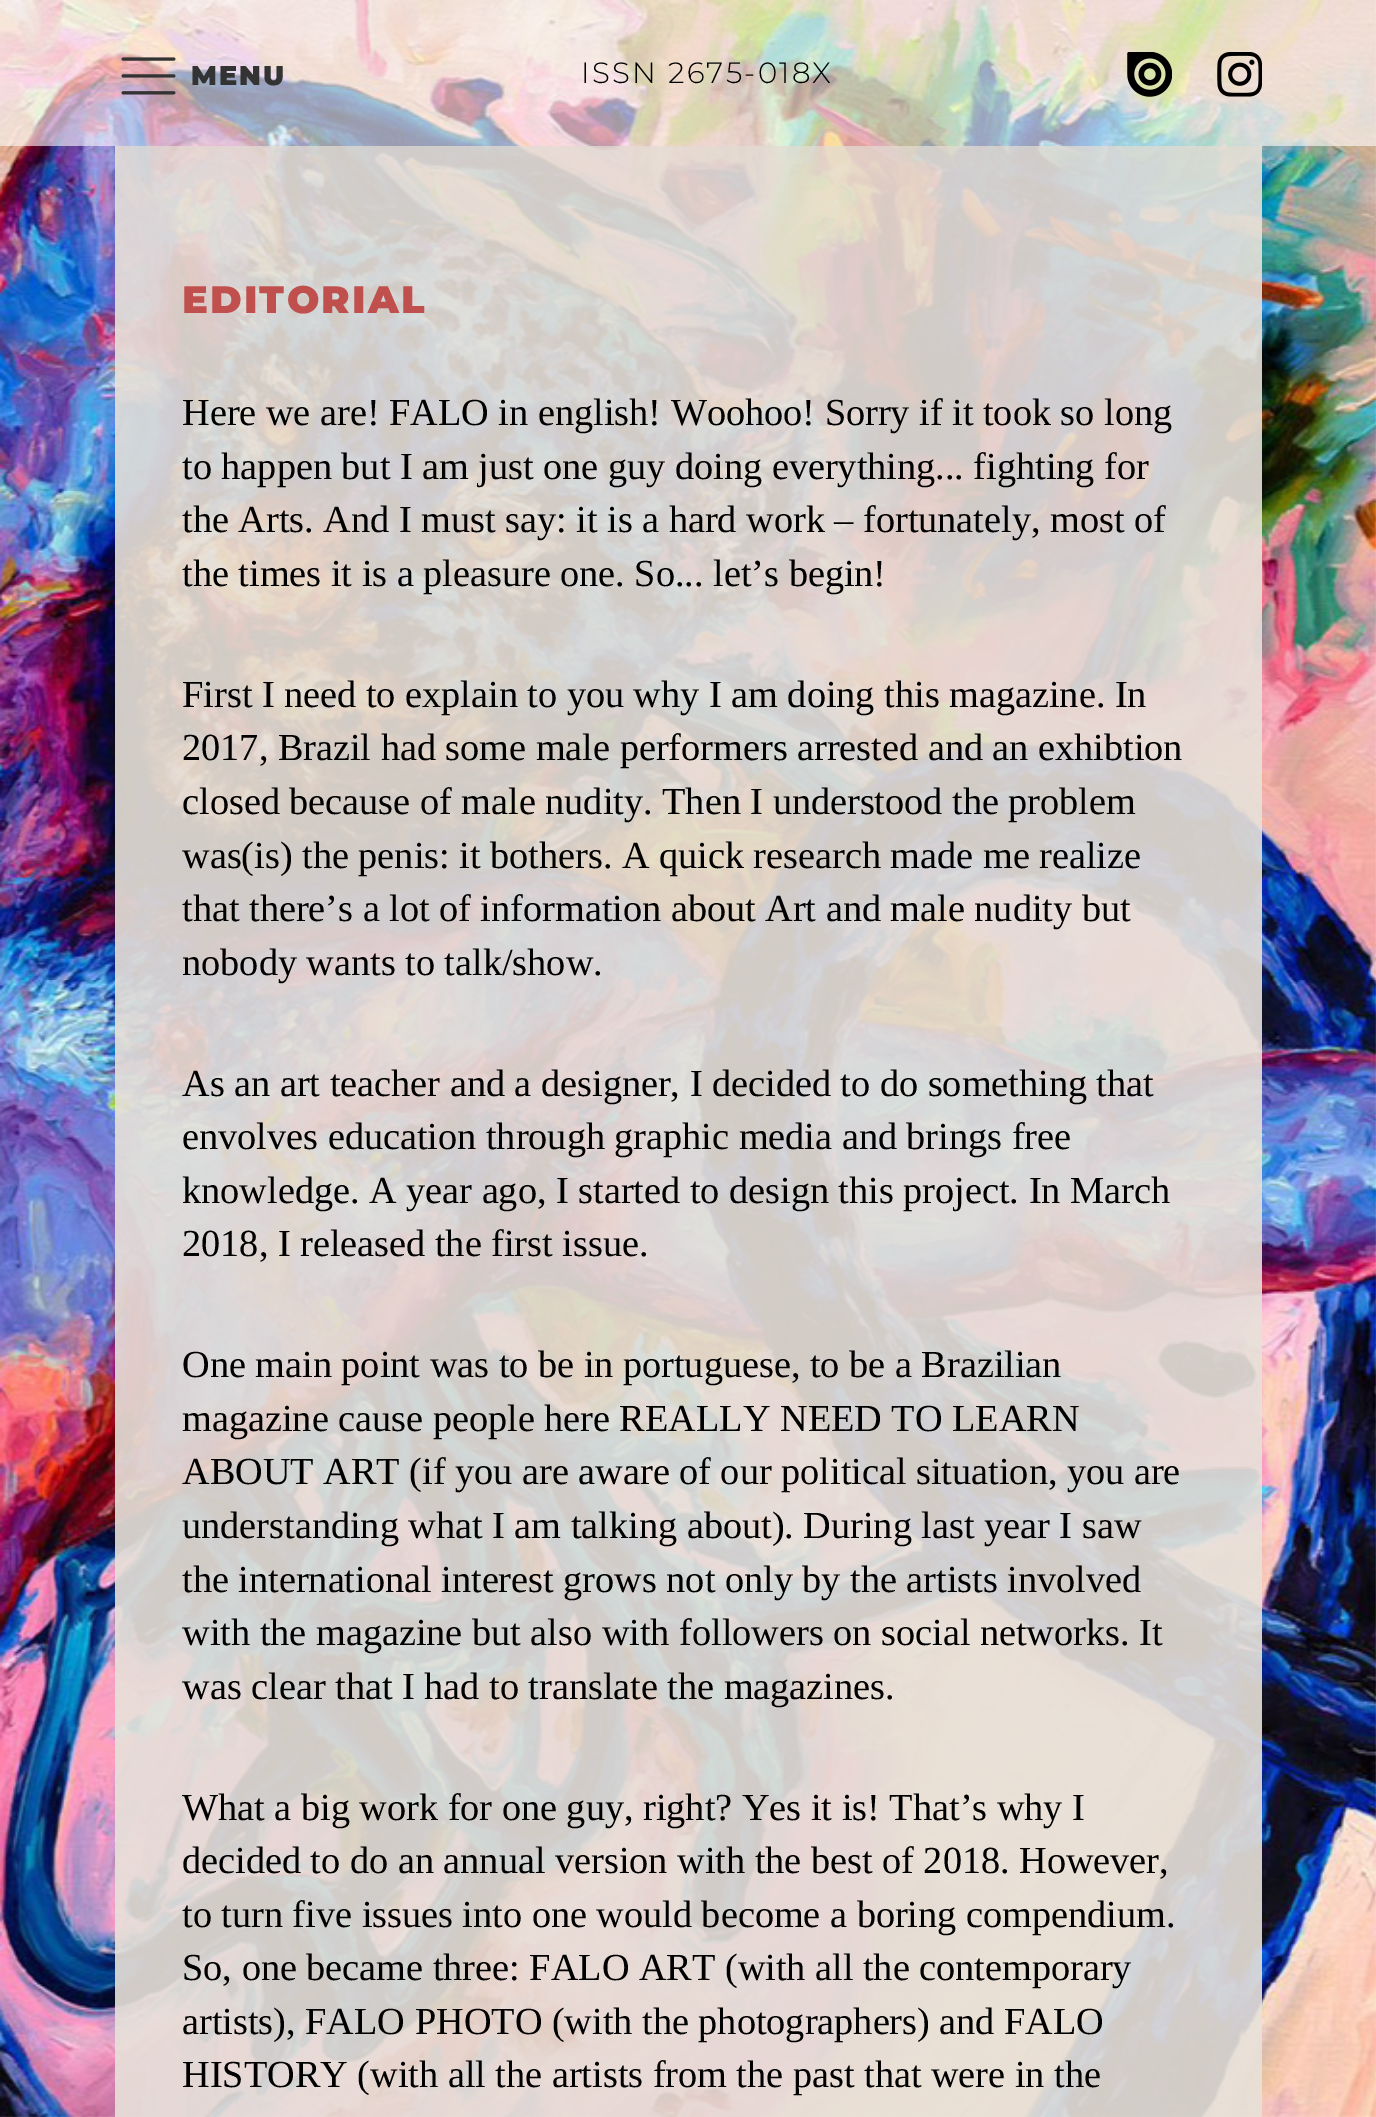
%!PS
<< /PageSize [1376 2117] /PageUsesTransparency true >> setpagedevice
/rgb { dup -16 bitshift 255 div exch dup -8 bitshift 255 and 255 div exch 255 and 255 div setrgbcolor } def
/font { [ exch dup neg 0 0 3 -1 roll 0 0 ] selectfont } def
/text { moveto show } def
/alpha { dup .setfillconstantalpha .setstrokeconstantalpha } def
/picture { 5 dict begin { /h /w /y /x /name } { exch def } forall
  gsave x y translate w h scale
  w h 8 [w 0 0 h 0 0] name (r) file false 3 colorimage grestore end } def
0 .pushpdf14devicefilter
0 2117 translate 1 -1 scale
4 setmiterlimit
/s1 { /LiberationSerif-Regular 38.25 font 16#000000 rgb } def
16#FFFFFF rgb
0 0 1376 2117 rectfill
(pic1.raw) 0 0 1376 2117 picture
0.6 alpha
0 0 1376 146 rectfill
1 alpha
(pic2.raw) 121 57 55 38 picture
/Montserrat-Black 27 font
16#333333 rgb
191 85 moveto 2.25 0 (MENU) ashow
/Montserrat-Light 29.25 font
16#000000 rgb
581 83 moveto 2.25 0 (ISSN 2675-018X) ashow
(pic3.raw) 1127 52 45 45 picture
(pic4.raw) 1217 52 45 45 picture
0.9 alpha
16#E7E1D9 rgb
115 146 1147 1971 rectfill
/Montserrat-Black 38.25 font
1 alpha
16#C0504D rgb
182 313 moveto 2.25 0 (EDITORIAL) ashow
s1
(Here we are! FALO in english! Woohoo! Sorry if it took so long) 182 425 text
(to happen but I am just one guy doing everything... fighting for) 182 479 text
(the Arts. And I must say: it is a hard work – fortunately, most of) 182 532 text
(the times it is a pleasure one. So... let’s begin!) 182 586 text
(First I need to explain to you why I am doing this magazine. In) 182 707 text
(2017, Brazil had some male performers arrested and an exhibtion) 182 760 text
(closed because of male nudity. Then I understood the problem) 182 814 text
(was\(is\) the penis: it bothers. A quick research made me realize) 182 868 text
(that there’s a lot of information about Art and male nudity but) 182 921 text
(nobody wants to talk/show.) 182 975 text
(As an art teacher and a designer, I decided to do something that) 182 1096 text
(envolves education through graphic media and brings free) 182 1149 text
(knowledge. A year ago, I started to design this project. In March) 182 1203 text
(2018, I released the first issue.) 182 1256 text
(One main point was to be in portuguese, to be a Brazilian) 182 1377 text
(magazine cause people here REALLY NEED TO LEARN) 182 1431 text
(ABOUT ART \(if you are aware of our political situation, you are) 182 1484 text
(understanding what I am talking about\). During last year I saw) 182 1538 text
(the international interest grows not only by the artists involved) 182 1592 text
(with the magazine but also with followers on social networks. It) 182 1645 text
(was clear that I had to translate the magazines.) 182 1699 text
(What a big work for one guy, right? Yes it is! That’s why I) 182 1820 text
(decided to do an annual version with the best of 2018. However,) 182 1873 text
(to turn five issues into one would become a boring compendium.) 182 1927 text
(So, one became three: FALO ART \(with all the contemporary) 182 1980 text
(artists\), FALO PHOTO \(with the photographers\) and FALO) 182 2034 text
(HISTORY \(with all the artists from the past that were in the) 182 2087 text
.poppdf14devicefilter showpage
